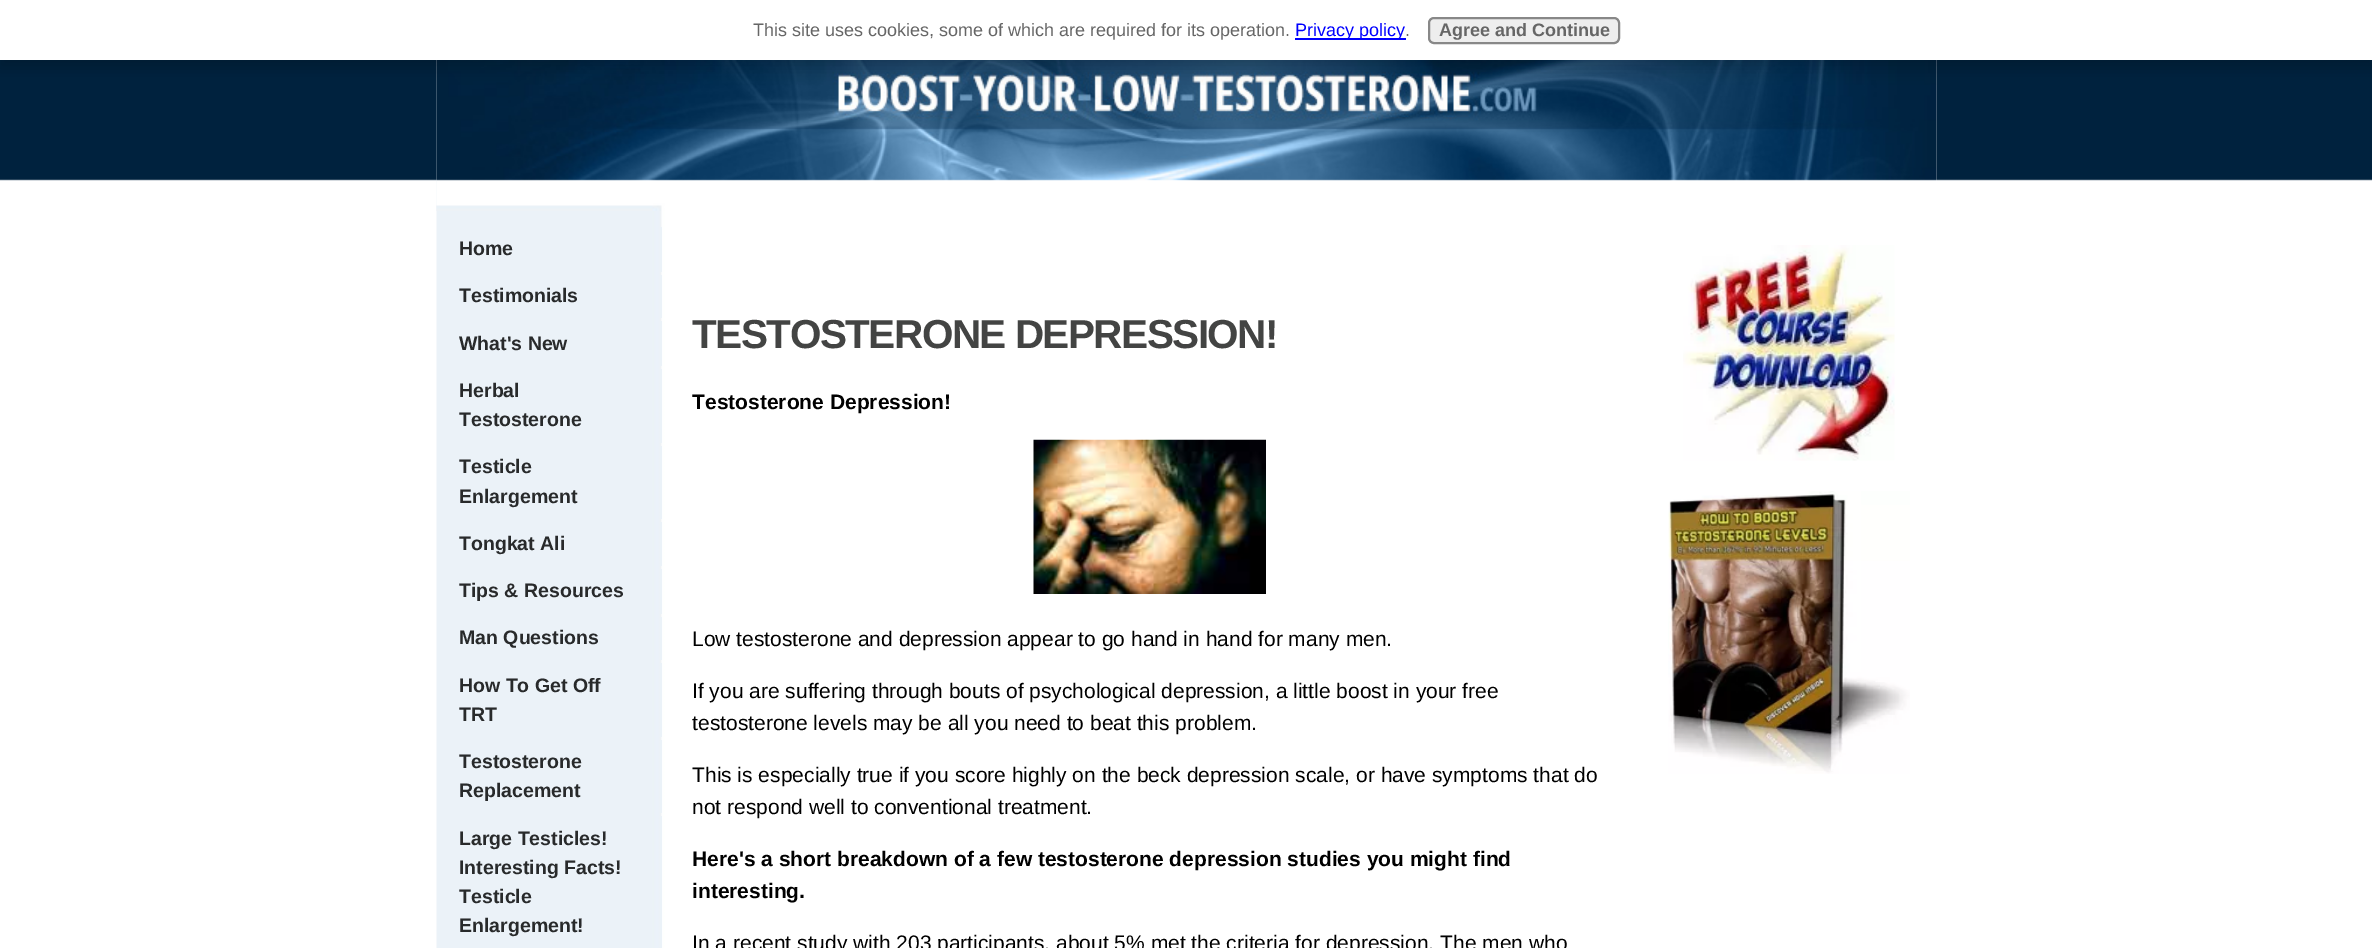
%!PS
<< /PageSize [2372 948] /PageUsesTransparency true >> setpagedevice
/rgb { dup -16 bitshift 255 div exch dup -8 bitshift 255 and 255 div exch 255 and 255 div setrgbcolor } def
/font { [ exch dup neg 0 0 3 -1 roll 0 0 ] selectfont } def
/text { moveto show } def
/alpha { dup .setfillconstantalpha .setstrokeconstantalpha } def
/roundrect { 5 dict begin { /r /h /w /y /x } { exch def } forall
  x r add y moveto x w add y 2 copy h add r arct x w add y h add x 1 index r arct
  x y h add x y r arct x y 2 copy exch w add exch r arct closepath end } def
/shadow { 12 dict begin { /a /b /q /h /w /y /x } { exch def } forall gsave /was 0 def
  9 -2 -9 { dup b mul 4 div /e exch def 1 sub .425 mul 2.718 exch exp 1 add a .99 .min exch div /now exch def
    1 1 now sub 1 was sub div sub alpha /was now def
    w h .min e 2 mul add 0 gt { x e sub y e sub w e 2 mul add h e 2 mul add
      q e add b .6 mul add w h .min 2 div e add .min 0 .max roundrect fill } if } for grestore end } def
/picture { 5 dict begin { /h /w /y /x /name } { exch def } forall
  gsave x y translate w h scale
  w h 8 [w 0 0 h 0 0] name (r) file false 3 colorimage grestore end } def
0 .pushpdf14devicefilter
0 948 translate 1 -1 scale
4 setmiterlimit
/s1 { /LiberationSans-Regular 18 font 16#666666 rgb } def
/s2 { /LiberationSans-Regular 18 font 16#0000FF rgb } def
/s3 { /LiberationSans-Bold 18 font 16#666666 rgb } def
/s4 { /LiberationSans-Bold 19.5 font 16#282A2B rgb } def
/s5 { /LiberationSans-Bold 21 font 16#000000 rgb } def
/s6 { /LiberationSans-Regular 21 font 16#000000 rgb } def
16#FFFFFF rgb
0 0 2372 948 rectfill
(pic1.raw) 0 60 2372 121 picture
(pic2.raw) 436 60 1501 888 picture
(pic3.raw) 436 60 1501 151 picture
16#000000 rgb
-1 5 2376 63 0 7.5 0.2 shadow
16#FFFFFF rgb
0 0 2372 60 rectfill
s1
(This site uses cookies, some of which are required for its operation.) 753 36 text
16#0000FF rgb
1295 38 111 2 rectfill
(Privacy policy) 1295 36 text
s1
(.) 1405 36 text
16#EEEEEE rgb
1429 18 190 25 5 roundrect gsave fill grestore
16#888888 rgb
2 setlinewidth
stroke
s3
(Agree and Continue) 1439 36 text
16#EBF2F8 rgb
660 227 2 45 rectfill
s4
(Home) 459 255 text
16#EBF2F8 rgb
660 275 2 43 rectfill
s4
(Testimonials) 459 302 text
16#EBF2F8 rgb
660 321 2 45 rectfill
s4
(What's New) 459 350 text
16#EBF2F8 rgb
660 369 2 74 rectfill
s4
(Herbal) 459 397 text
(Testosterone) 459 426 text
16#EBF2F8 rgb
660 446 2 73 rectfill
s4
(Testicle) 459 473 text
(Enlargement) 459 503 text
16#EBF2F8 rgb
660 522 2 44 rectfill
s4
(Tongkat Ali) 459 550 text
16#EBF2F8 rgb
660 569 2 45 rectfill
s4
(Tips & Resources) 459 597 text
16#EBF2F8 rgb
660 617 2 43 rectfill
s4
(Man Questions) 459 644 text
16#EBF2F8 rgb
660 663 2 74 rectfill
s4
(How To Get Off) 459 692 text
(TRT) 459 721 text
16#EBF2F8 rgb
660 740 2 73 rectfill
s4
(Testosterone) 459 768 text
(Replacement) 459 797 text
16#EBF2F8 rgb
660 816 2 132 rectfill
s4
(Large Testicles!) 459 845 text
(Interesting Facts!) 459 874 text
(Testicle) 459 903 text
(Enlargement!) 459 932 text
/LiberationSans-Bold 40.5 font
16#434443 rgb
692 348 moveto -1.5 0 (TESTOSTERONE DEPRESSION!) ashow
s5
(Testosterone Depression!) 692 409 text
(pic4.raw) 1033 439 233 155 picture
s6
(Low testosterone and depression appear to go hand in hand for many men.) 692 646 text
(If you are suffering through bouts of psychological depression, a little boost in your free) 692 698 text
(testosterone levels may be all you need to beat this problem.) 692 730 text
(This is especially true if you score highly on the beck depression scale, or have symptoms that do) 692 782 text
(not respond well to conventional treatment.) 692 814 text
s5
(Here's a short breakdown of a few testosterone depression studies you might find) 692 866 text
(interesting.) 692 898 text
s6
(In a recent study with 203 participants, about 5% met the criteria for depression. The men who) 692 950 text
(pic5.raw) 1683 245 212 216 picture
(pic6.raw) 1668 491 242 283 picture
.poppdf14devicefilter showpage
